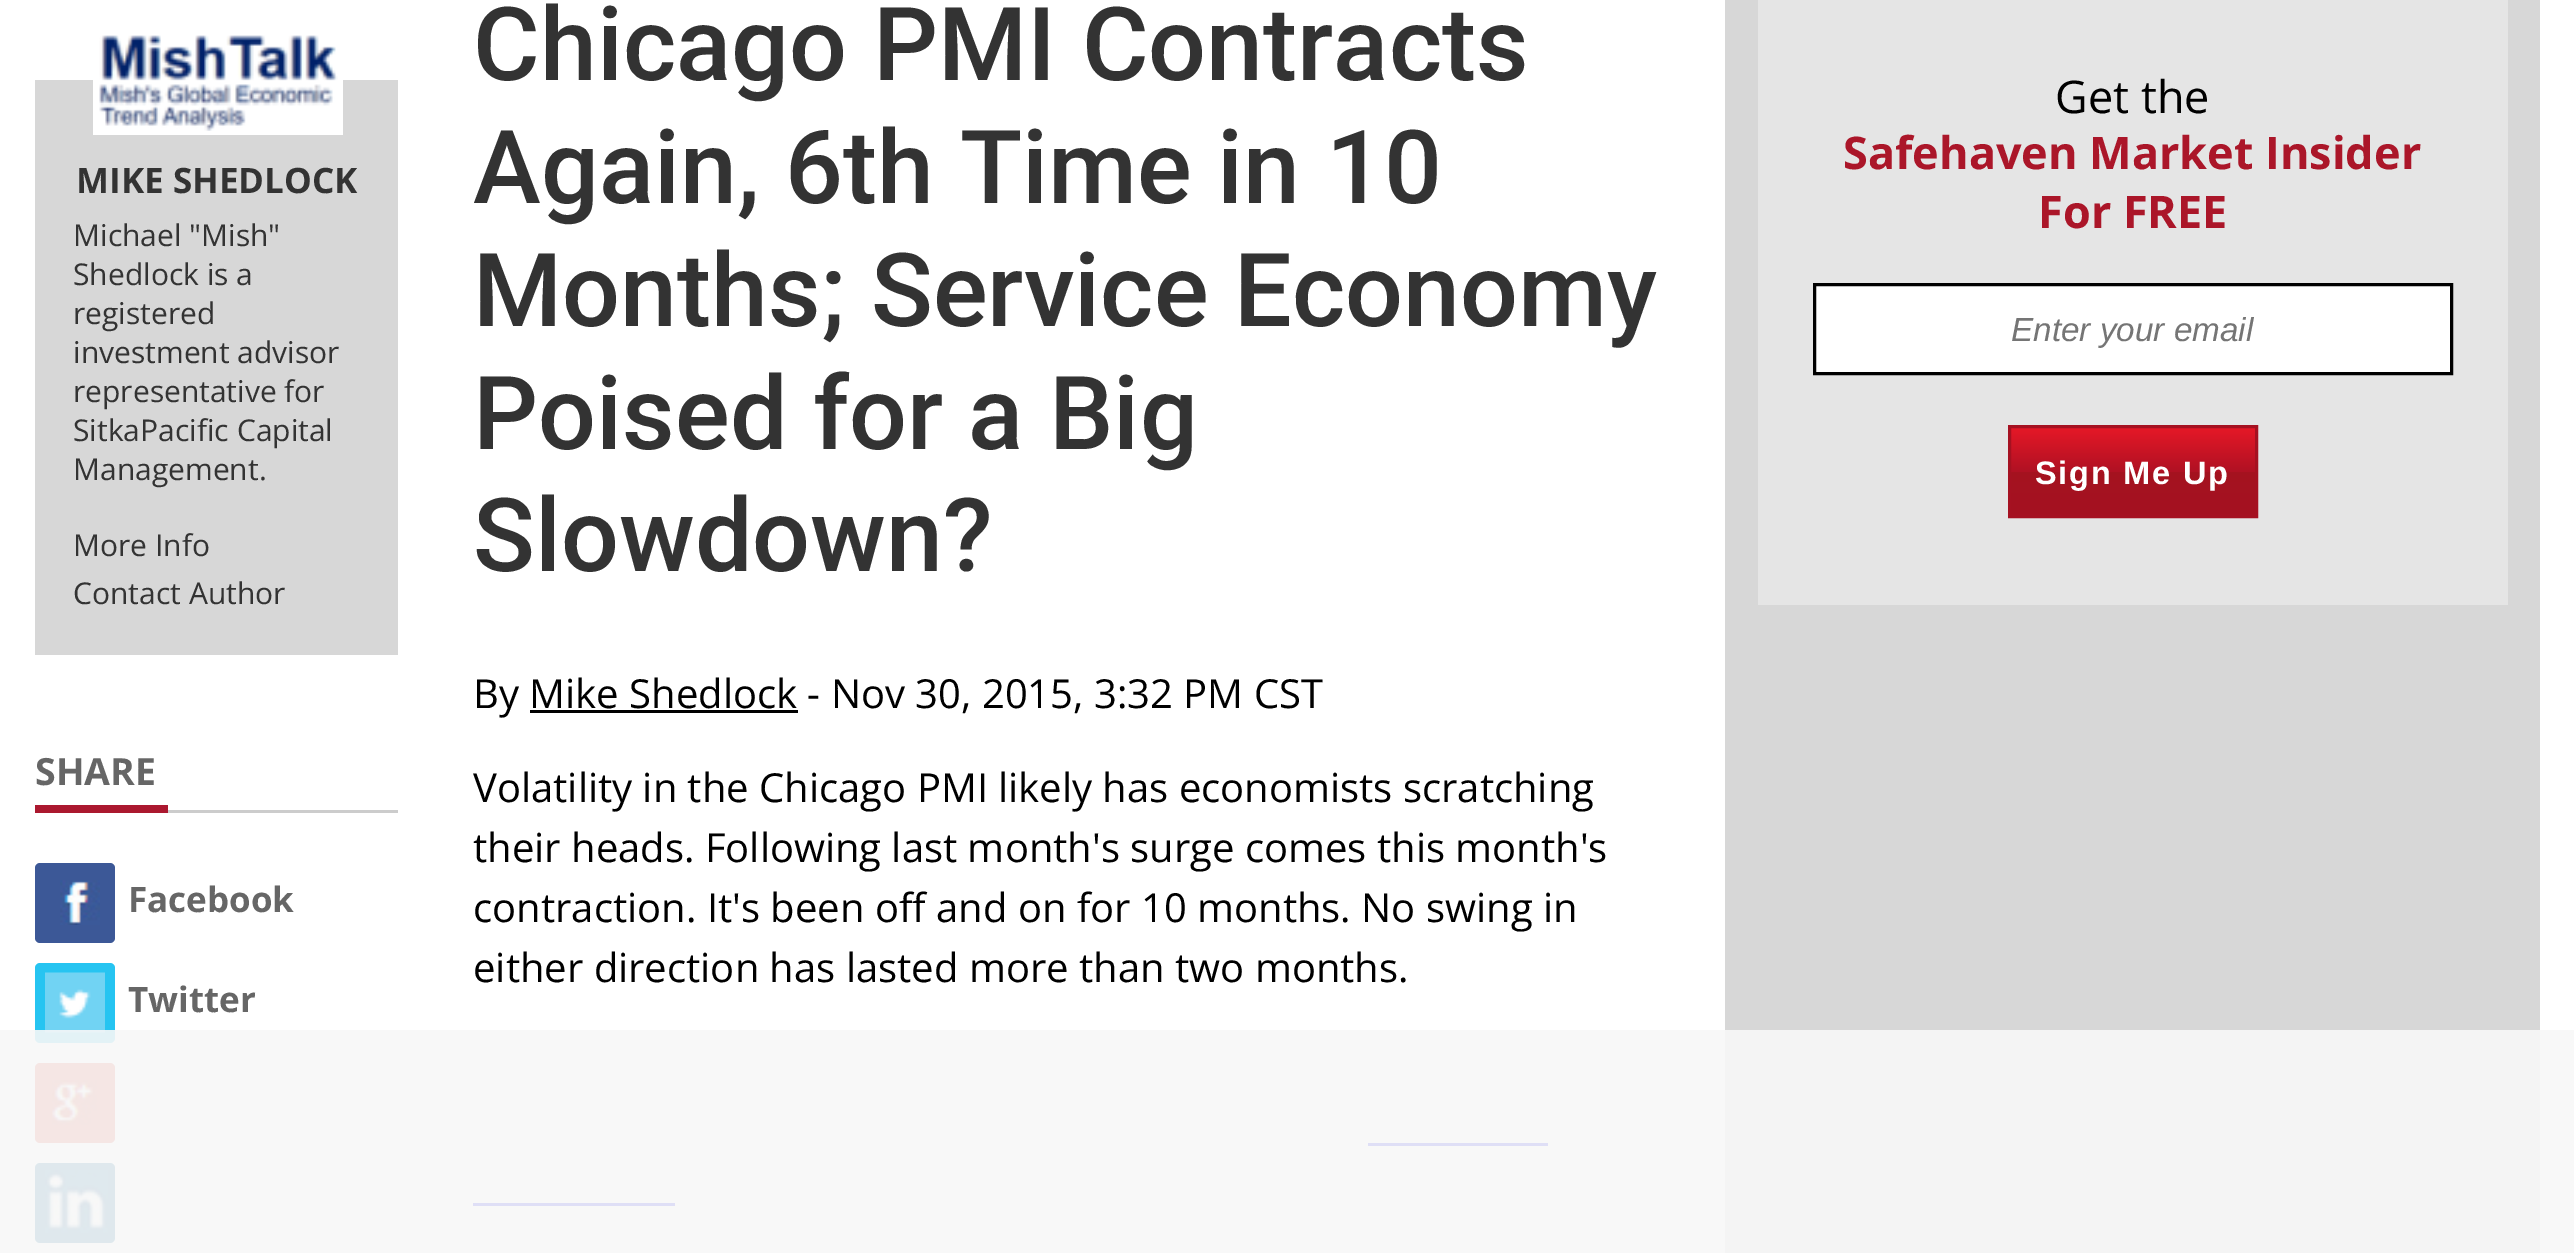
%!PS
<< /PageSize [2574 1253] /PageUsesTransparency true >> setpagedevice
/rgb { dup -16 bitshift 255 div exch dup -8 bitshift 255 and 255 div exch 255 and 255 div setrgbcolor } def
/font { [ exch dup neg 0 0 3 -1 roll 0 0 ] selectfont } def
/text { moveto show } def
/alpha { dup .setfillconstantalpha .setstrokeconstantalpha } def
/roundrect { 5 dict begin { /r /h /w /y /x } { exch def } forall
  x r add y moveto x w add y 2 copy h add r arct x w add y h add x 1 index r arct
  x y h add x y r arct x y 2 copy exch w add exch r arct closepath end } def
/picture { 5 dict begin { /h /w /y /x /name } { exch def } forall
  gsave x y translate w h scale
  w h 8 [w 0 0 h 0 0] name (r) file false 3 colorimage grestore end } def
0 .pushpdf14devicefilter
0 1253 translate 1 -1 scale
4 setmiterlimit
/s1 { /OpenSans-Bold 35 font 16#333333 rgb } def
/s2 { /OpenSans-Regular 30 font 16#333333 rgb } def
/s3 { /OpenSans-Bold 37.5 font 16#666666 rgb } def
/s4 { /OpenSans-Bold 35 font 16#666666 rgb } def
/s5 { /Roboto-Medium 102.25 font 16#333333 rgb } def
/s6 { /OpenSans-Regular 40 font 16#000000 rgb } def
/s7 { /OpenSans-Regular 45 font 16#000000 rgb } def
/s8 { /OpenSans-Bold 45 font 16#AB1629 rgb } def
/s9 { /LiberationSans-Italic 33.25 font 16#757575 rgb } def
16#FFFFFF rgb
0 0 2574 1253 rectfill
16#D7D7D7 rgb
35 80 363 575 rectfill
16#FFFFFF rgb
93 80 250 55 rectfill
(pic1.raw) 99 35 239 96 picture
s1
(MIKE SHEDLOCK) 76 193 text
s2
(Michael "Mish") 73 246 text
(Shedlock is a) 73 285 text
(registered) 73 324 text
(investment advisor) 73 363 text
(representative for) 73 402 text
(SitkaPacific Capital) 73 441 text
(Management.) 73 480 text
(More Info) 73 556 text
(Contact Author) 73 604 text
s3
(SHARE) 35 785 text
16#AB182F rgb
35 805 133 8 rectfill
16#CCCCCC rgb
168 810 230 3 rectfill
16#3C5897 rgb
35 863 80 80 5 roundrect fill
(pic2.raw) 60 880 40 45 picture
s4
(Facebook) 128 912 text
16#26C4F1 rgb
35 963 80 80 5 roundrect fill
(pic3.raw) 45 972 60 61 picture
s4
(Twitter) 128 1012 text
16#DE4B39 rgb
35 1063 80 80 5 roundrect fill
(pic4.raw) 52 1080 45 45 picture
16#006395 rgb
35 1163 80 80 5 roundrect fill
(pic5.raw) 45 1170 63 63 picture
s5
(Chicago PMI Contracts) 473 80 text
(Again, 6th Time in 10) 473 203 text
(Months; Service Economy) 473 326 text
(Poised for a Big) 473 449 text
(Slowdown?) 473 571 text
s6
(By Mike Shedlock - Nov 30, 2015, 3:32 PM CST) 473 708 text
530 710 268 3 rectfill
(Volatility in the Chicago PMI likely has economists scratching) 473 802 text
(their heads. Following last month's surge comes this month's) 473 862 text
(contraction. It's been off and on for 10 months. No swing in) 473 922 text
(either direction has lasted more than two months.) 473 982 text
16#0000EE rgb
1368 1143 180 3 rectfill
473 1203 202 3 rectfill
16#D7D7D7 rgb
1725 0 815 1253 rectfill
16#E5E5E5 rgb
1758 0 750 605 rectfill
s7
(Get the) 2055 113 text
s8
(Safehaven Market Insider) 1843 169 text
(For FREE) 2038 228 text
16#FFFFFF rgb
1814.5 284.5 moveto 2451.5 284.5 lineto 2451.5 373.5 lineto 1814.5 373.5 lineto closepath gsave fill grestore
16#000000 rgb
3 setlinewidth
stroke
s9
(Enter your email) 2011 341 text
gsave 2011 428 moveto 2255 428 lineto 2255 515 lineto 2011 515 lineto closepath clip newpath
<< /ShadingType 2 /ColorSpace /DeviceRGB /Coords [2133 428 2133 515] /Extend [true true] /Function << /FunctionType 3 /Domain [0 1] /Functions [<< /FunctionType 2 /Domain [0 1] /C0 [0.898 0.094 0.153] /C1 [0.69 0.067 0.137] /N 1 >> << /FunctionType 2 /Domain [0 1] /C0 [0.69 0.067 0.137] /C1 [0.643 0.071 0.122] /N 1 >> << /FunctionType 2 /Domain [0 1] /C0 [0.643 0.071 0.122] /C1 [0.647 0.067 0.129] /N 1 >>] /Bounds [0.5 0.51] /Encode [0 1 0 1 0 1] >> >> shfill grestore
16#A51121 rgb
2009.5 426.5 247 90 rectstroke
/LiberationSans-Bold 32.5 font
16#FFFFFF rgb
2035 484 moveto 1.75 0 (Sign Me Up) ashow
0.9 alpha
16#F7F7F7 rgb
0 1030 2574 223 rectfill
.poppdf14devicefilter showpage
